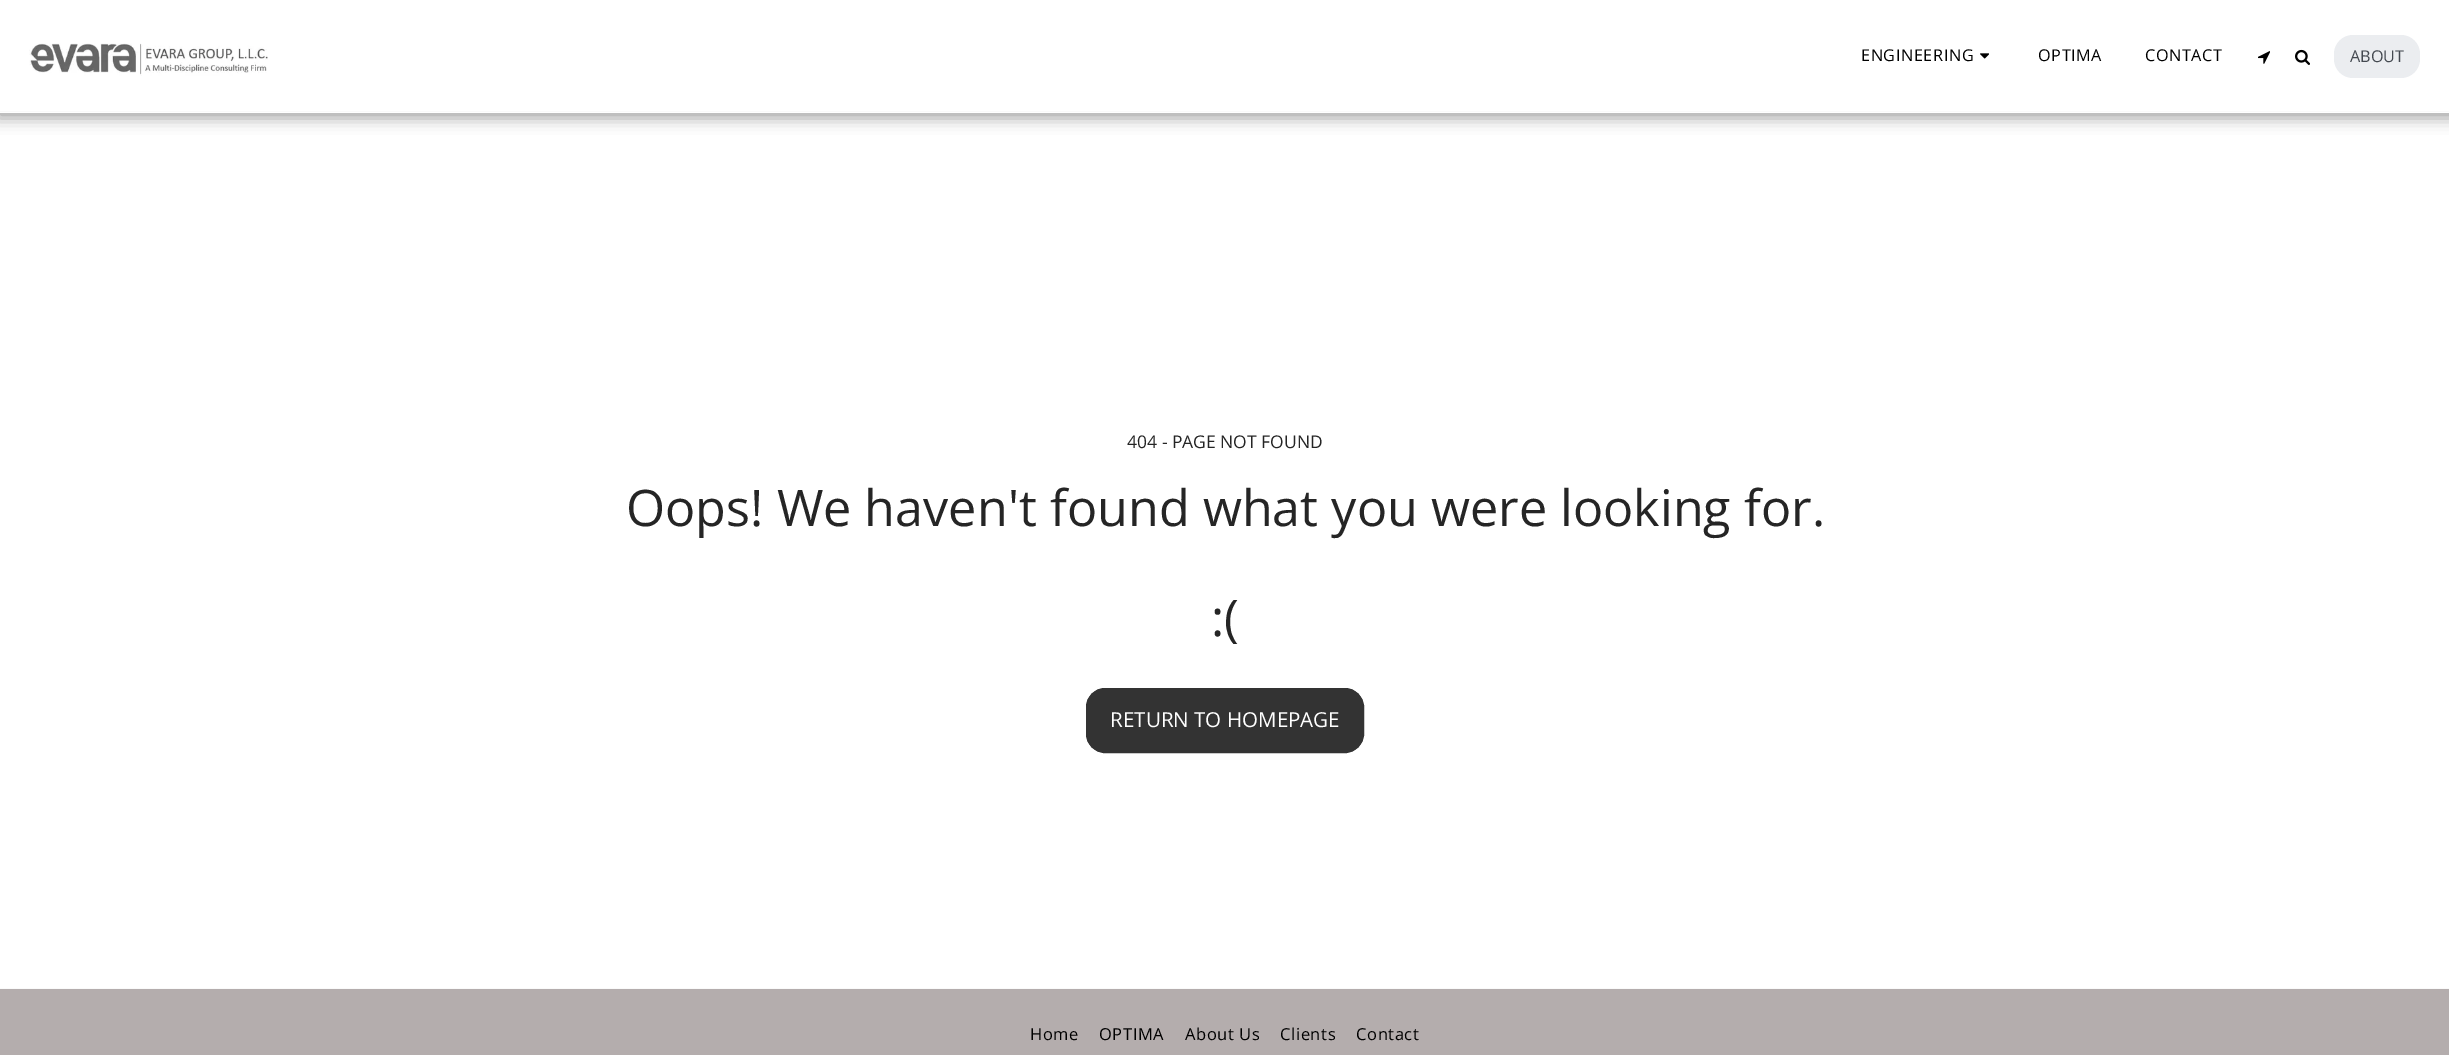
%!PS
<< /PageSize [2449 1055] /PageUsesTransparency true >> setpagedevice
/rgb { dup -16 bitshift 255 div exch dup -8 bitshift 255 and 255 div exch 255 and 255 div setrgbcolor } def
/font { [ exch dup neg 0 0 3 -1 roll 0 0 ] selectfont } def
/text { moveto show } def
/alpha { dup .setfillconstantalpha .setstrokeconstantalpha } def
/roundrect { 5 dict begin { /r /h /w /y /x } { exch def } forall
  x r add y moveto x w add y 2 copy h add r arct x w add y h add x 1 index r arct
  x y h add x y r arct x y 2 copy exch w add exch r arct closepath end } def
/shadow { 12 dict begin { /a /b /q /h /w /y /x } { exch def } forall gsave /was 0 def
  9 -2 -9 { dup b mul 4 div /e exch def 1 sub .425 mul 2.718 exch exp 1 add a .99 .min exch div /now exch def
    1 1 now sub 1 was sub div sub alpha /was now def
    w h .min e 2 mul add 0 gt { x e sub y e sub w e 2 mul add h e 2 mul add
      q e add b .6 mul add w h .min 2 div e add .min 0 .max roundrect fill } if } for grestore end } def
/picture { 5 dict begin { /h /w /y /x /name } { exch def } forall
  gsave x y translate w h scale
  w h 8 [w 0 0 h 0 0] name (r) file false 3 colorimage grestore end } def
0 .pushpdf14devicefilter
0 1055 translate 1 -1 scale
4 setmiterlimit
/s1 { /OpenSans-Regular 16.25 font 16#444950 rgb } def
/s2 { /OpenSans-Regular 17.5 font 16#252525 rgb } def
/s3 { /OpenSans-Regular 50.35 font 16#252525 rgb } def
/s4 { /OpenSans-Regular 20.6 font 16#FFFFFF rgb } def
16#FFFFFF rgb
0 0 2449 1055 rectfill
16#000000 rgb
-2 0 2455 118 0 7.5 0.35 shadow
16#FFFFFF rgb
0 0 2449 113 rectfill
16#FAFAFA rgb
0 111 2449 1 rectfill
(pic1.raw) 29 43 239 33 picture
/OpenSans-Regular 16.25 font
16#000000 rgb
1861 61 moveto 0.6 0 (ENGINEERING) ashow
(pic2.raw) 1980 53 9 6 picture
2038 61 moveto 0.6 0 (OPTIMA) ashow
2145 61 moveto 0.6 0 (CONTACT) ashow
(pic3.raw) 2258 51 12 13 picture
(pic4.raw) 2295 49 15 16 picture
16#EBEDF0 rgb
2334 35 86 43 19 roundrect fill
s1
(ABOUT) 2350 62 text
s2
(404 - PAGE NOT FOUND) 1127 448 text
s3
(Oops! We haven't found what you were looking for.) 626 526 text
(:\() 1211 636 text
16#333333 rgb
1086.5 688.5 277 64 18.5 roundrect gsave fill grestore
stroke
s4
(RETURN TO HOMEPAGE) 1110 727 text
16#FAFAFA rgb
0 988 2449 1 rectfill
16#B4ADAD rgb
0 989 2449 66 rectfill
/OpenSans-Regular 16.5 font
16#000000 rgb
1030 1040 moveto 0.6 0 (Home) ashow
1099 1040 moveto 0.6 0 (OPTIMA) ashow
1185 1040 moveto 0.6 0 (About Us) ashow
1280 1040 moveto 0.6 0 (Clients) ashow
1356 1040 moveto 0.6 0 (Contact) ashow
.poppdf14devicefilter showpage
